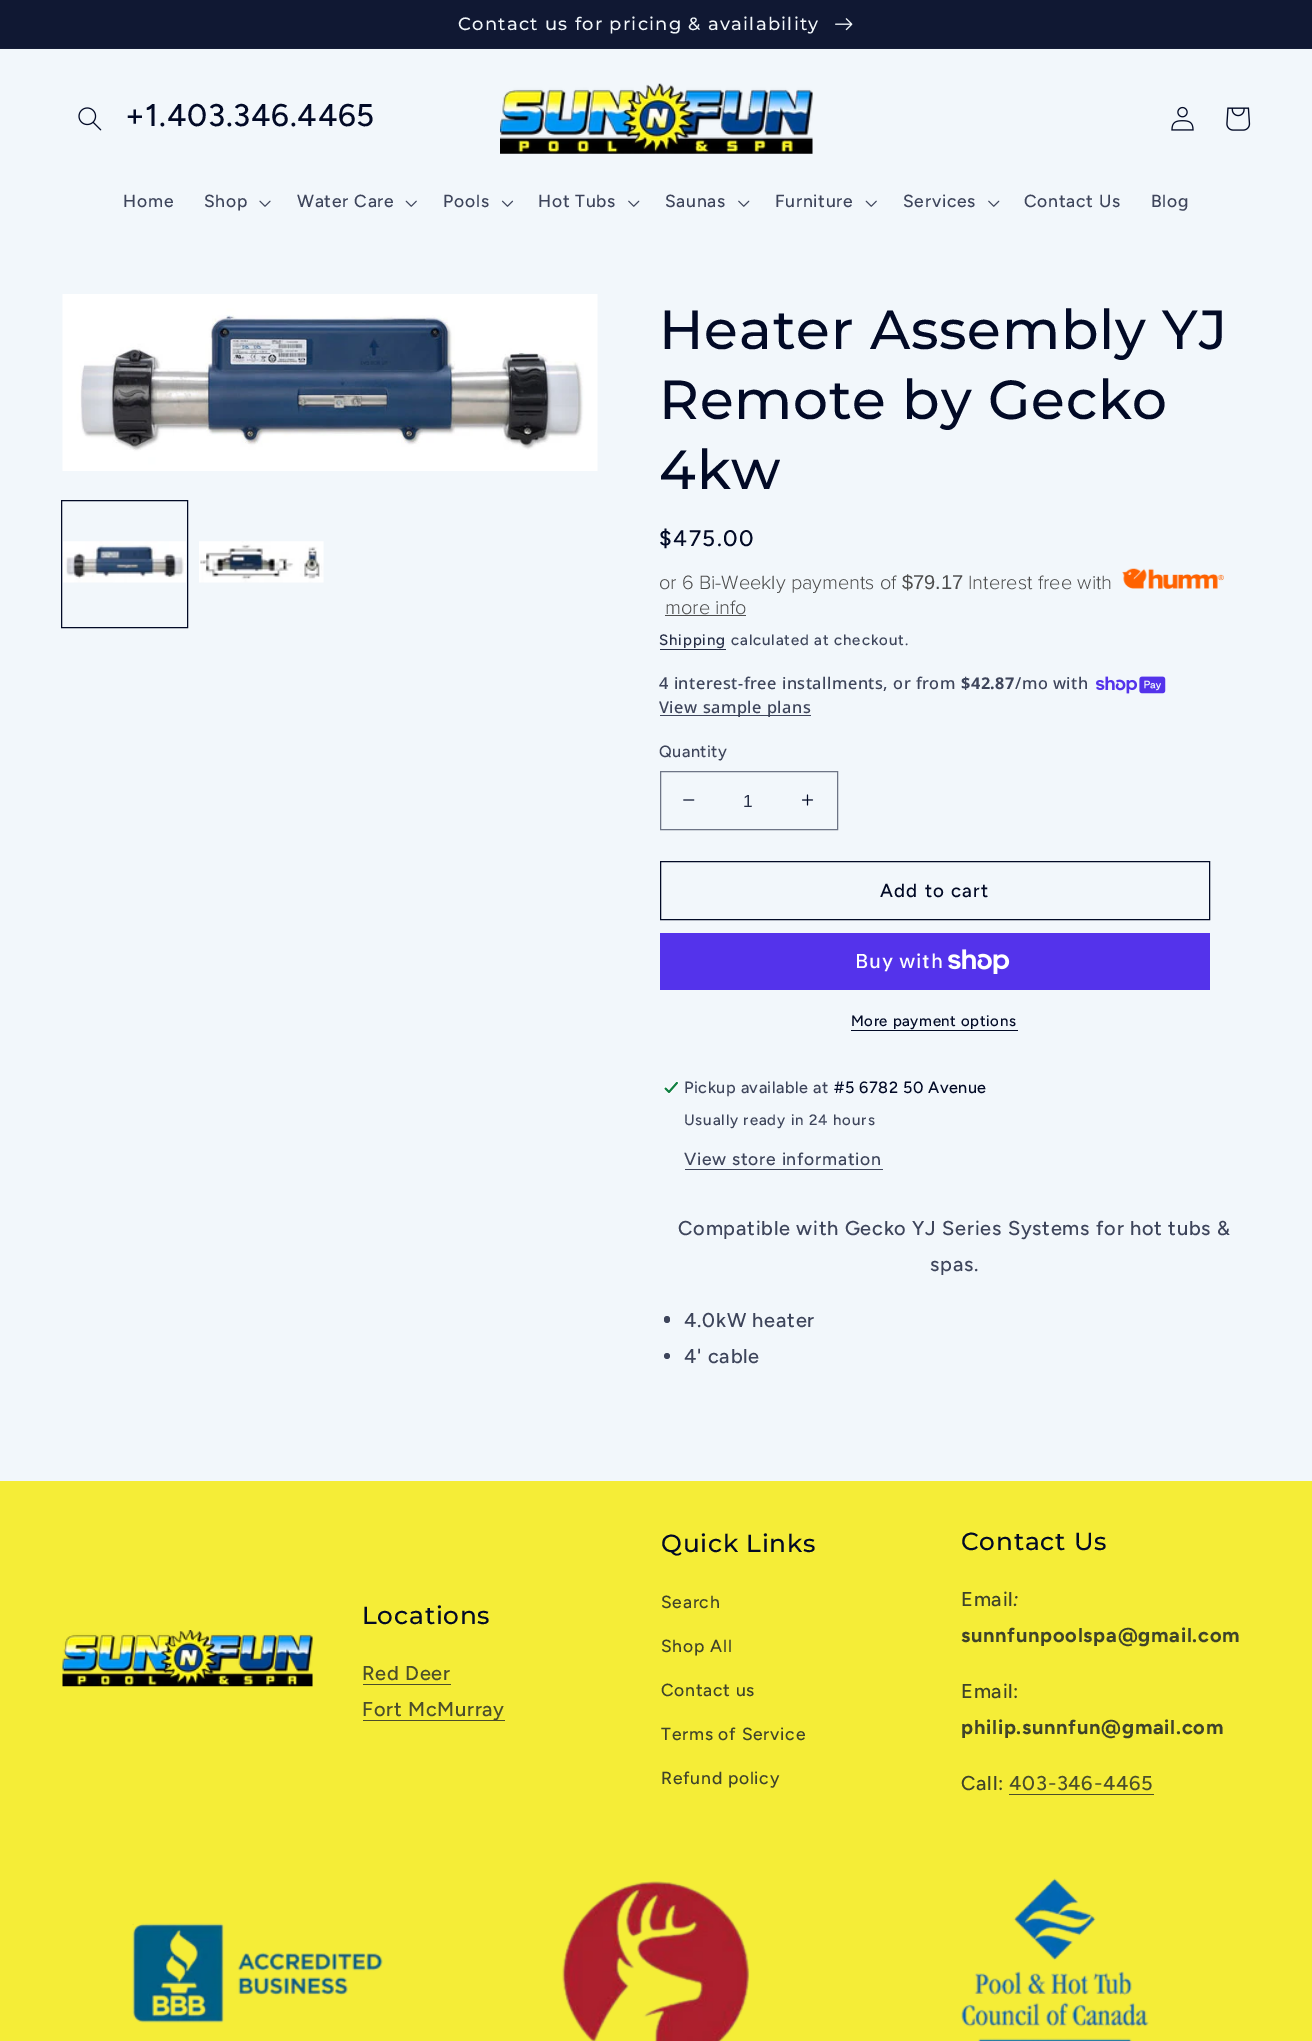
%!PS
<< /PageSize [1312 2041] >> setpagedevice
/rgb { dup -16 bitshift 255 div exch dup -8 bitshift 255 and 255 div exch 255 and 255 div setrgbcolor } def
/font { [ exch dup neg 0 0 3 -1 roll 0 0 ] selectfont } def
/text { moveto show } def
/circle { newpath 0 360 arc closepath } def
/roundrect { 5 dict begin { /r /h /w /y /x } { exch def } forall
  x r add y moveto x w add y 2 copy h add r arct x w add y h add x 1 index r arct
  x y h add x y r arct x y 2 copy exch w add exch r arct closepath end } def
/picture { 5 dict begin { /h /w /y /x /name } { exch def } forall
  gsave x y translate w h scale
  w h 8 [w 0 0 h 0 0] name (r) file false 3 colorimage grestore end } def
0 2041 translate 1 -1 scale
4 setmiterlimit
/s1 { /ProximaNova-Light 20 font 16#4D4D4D rgb } def
/s2 { /LiberationSans-Regular 20 font 16#4D4D4D rgb } def
/s3 { /LiberationSans-Regular 17.5 font 16#262E46 rgb } def
16#F2F7FB rgb
0 0 1312 2041 rectfill
16#151D37 rgb
0 48 1312 1 rectfill
16#101833 rgb
0 0 1312 48 rectfill
/Montserrat-Medium 17.9 font
16#F2F7FB rgb
458 30 moveto 1.25 0 (Contact us for pricing & availability) ashow
(pic1.raw) 835 18 18 13 picture
(pic2.raw) 78 107 24 24 picture
/Figtree-Medium 31.25 font
16#020A26 rgb
125 126 moveto 0.75 0 (+1.403.346.4465) ashow
(pic3.raw) 500 83 313 71 picture
(pic4.raw) 1171 106 23 25 picture
(pic5.raw) 1226 107 25 24 picture
/Figtree-Medium 17.5 font
16#3E455B rgb
123 207 moveto 0.75 0 (Home) ashow
204 207 moveto 0.75 0 (Shop) ashow
(pic6.raw) 259 200 12 7 picture
297 207 moveto 0.75 0 (Water Care) ashow
(pic7.raw) 405 200 12 7 picture
443 207 moveto 0.75 0 (Pools) ashow
(pic8.raw) 501 200 13 7 picture
538 207 moveto 0.75 0 (Hot Tubs) ashow
(pic9.raw) 628 200 12 7 picture
665 207 moveto 0.75 0 (Saunas) ashow
(pic9.raw) 738 200 12 7 picture
775 207 moveto 0.75 0 (Furniture) ashow
(pic7.raw) 865 200 12 7 picture
903 207 moveto 0.75 0 (Services) ashow
(pic9.raw) 988 200 12 7 picture
1024 207 moveto 0.75 0 (Contact Us) ashow
1151 207 moveto 0.75 0 (Blog) ashow
(pic10.raw) 62 294 536 177 picture
16#020A26 rgb
61.5 500.5 126 127 rectstroke
(pic11.raw) 63 541 123 42 picture
(pic12.raw) 199 541 125 42 picture
/Montserrat-Medium 55 font
659 349 moveto 0.8 0 (Heater Assembly YJ) ashow
659 419 moveto 0.8 0 (Remote by Gecko) ashow
659 489 moveto 0.8 0 (4kw) ashow
/Figtree-Medium 22.5 font
659 546 moveto 1.5 0 ($475.00) ashow
s1
(or 6 Bi-Weekly payments of) 659 589 text
s2
($79.17) 902 589 text
s1
(Interest free with) 968 589 text
(pic13.raw) 1122 568 102 21 picture
(more info) 665 614 text
665 615 81 1 rectfill
/Figtree-Medium 15 font
16#262E46 rgb
659 645 moveto 0.9 0 (Shipping) ashow
660 649 66 1 rectfill
16#3E455B rgb
731 645 moveto 0.9 0 (calculated at checkout.) ashow
/NotoSans-Medium 16.25 font
659 689 moveto 0.5 0 (4 interest-free installments, or from) ashow
/NotoSans-Bold 16.25 font
961 689 moveto 0.5 0 ($42.87) ashow
/NotoSans-Medium 16.25 font
1015 689 moveto 0.5 0 (/mo with) ashow
(pic14.raw) 1096 676 70 18 picture
660 715 151 1 rectfill
659 713 moveto 0.5 0 (View sample plans) ashow
/Figtree-Medium 16.25 font
659 757 moveto 0.5 0 (Quantity) ashow
(pic15.raw) 683 799 12 2 picture
(pic16.raw) 802 794 12 12 picture
16#6E7586 rgb
660.5 771.5 177 58 rectstroke
s3
(1) 743 807 text
16#020A26 rgb
660.5 861.5 549 58 rectstroke
/Figtree-Medium 18.75 font
880 897 moveto 1.25 0 (Add to cart) ashow
16#5433EB rgb
660 933 550 57 rectfill
/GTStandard-Medium 20 font
16#FFFFFF rgb
855 968 moveto 0.75 0 (Buy with) ashow
(pic17.raw) 948 949 62 25 picture
/Figtree-Medium 15 font
16#020A26 rgb
851 1026 moveto 0.6 0 (More payment options) ashow
851 1030 167 1 rectfill
(pic18.raw) 663 1081 16 13 picture
/Figtree-Medium 16.25 font
16#3E455B rgb
684 1093 moveto 0.5 0 (Pickup available at) ashow
16#020A26 rgb
834 1093 moveto 0.5 0 (#5 6782 50 Avenue) ashow
/Figtree-Medium 15 font
16#3E455B rgb
684 1125 moveto 0.9 0 (Usually ready in 24 hours) ashow
/Figtree-Medium 17.5 font
684 1165 moveto 0.75 0 (View store information) ashow
685 1169 198 1 rectfill
/Figtree-Medium 20 font
678 1235 moveto 0.75 0 (Compatible with Gecko YJ Series Systems for hot tubs &) ashow
930 1271 moveto 0.75 0 (spas.) ashow
664 1316 6 7 3 roundrect fill
684 1327 moveto 0.75 0 (4.0kW heater) ashow
667 1356 3 circle fill
684 1363 moveto 0.75 0 (4' cable) ashow
16#F5ED37 rgb
0 1481 1312 560 rectfill
(pic19.raw) 62 1630 251 57 picture
/Montserrat-Medium 24.75 font
16#020A26 rgb
362 1624 moveto 0.8 0 (Locations) ashow
/Figtree-Medium 20 font
16#4B4E2B rgb
362 1680 moveto 0.75 0 (Red Deer) ashow
363 1684 88 1 rectfill
363 1720 142 1 rectfill
362 1716 moveto 0.75 0 (Fort McMurray) ashow
/Montserrat-Medium 24.75 font
16#020A26 rgb
661 1552 moveto 0.8 0 (Quick Links) ashow
/Figtree-Medium 17.5 font
16#3F432A rgb
661 1608 moveto 0.75 0 (Search) ashow
661 1652 moveto 0.75 0 (Shop All) ashow
661 1696 moveto 0.75 0 (Contact us) ashow
661 1740 moveto 0.75 0 (Terms of Service) ashow
661 1784 moveto 0.75 0 (Refund policy) ashow
/Montserrat-Medium 24.75 font
16#020A26 rgb
961 1550 moveto 0.8 0 (Contact Us) ashow
/Figtree-Medium 20 font
16#3F432A rgb
961 1606 moveto 0.75 0 (Email) ashow
/Figtree-MediumItalic 20 font
1013 1606 moveto 0.75 0 (:) ashow
/Figtree-Bold 20 font
961 1642 moveto 0.75 0 (sunnfunpoolspa@gmail.com) ashow
/Figtree-Medium 20 font
961 1698 moveto 0.75 0 (Email:) ashow
/Figtree-Bold 20 font
961 1734 moveto 0.75 0 (philip.sunnfun@gmail.com) ashow
/Figtree-Medium 20 font
961 1790 moveto 0.75 0 (Call:) ashow
16#4B4E2B rgb
1009 1790 moveto 0.75 0 (403-346-4465) ashow
1009 1794 145 1 rectfill
(pic20.raw) 132 1923 251 100 picture
(pic21.raw) 562 1881 188 160 picture
(pic22.raw) 961 1878 188 163 picture
showpage
